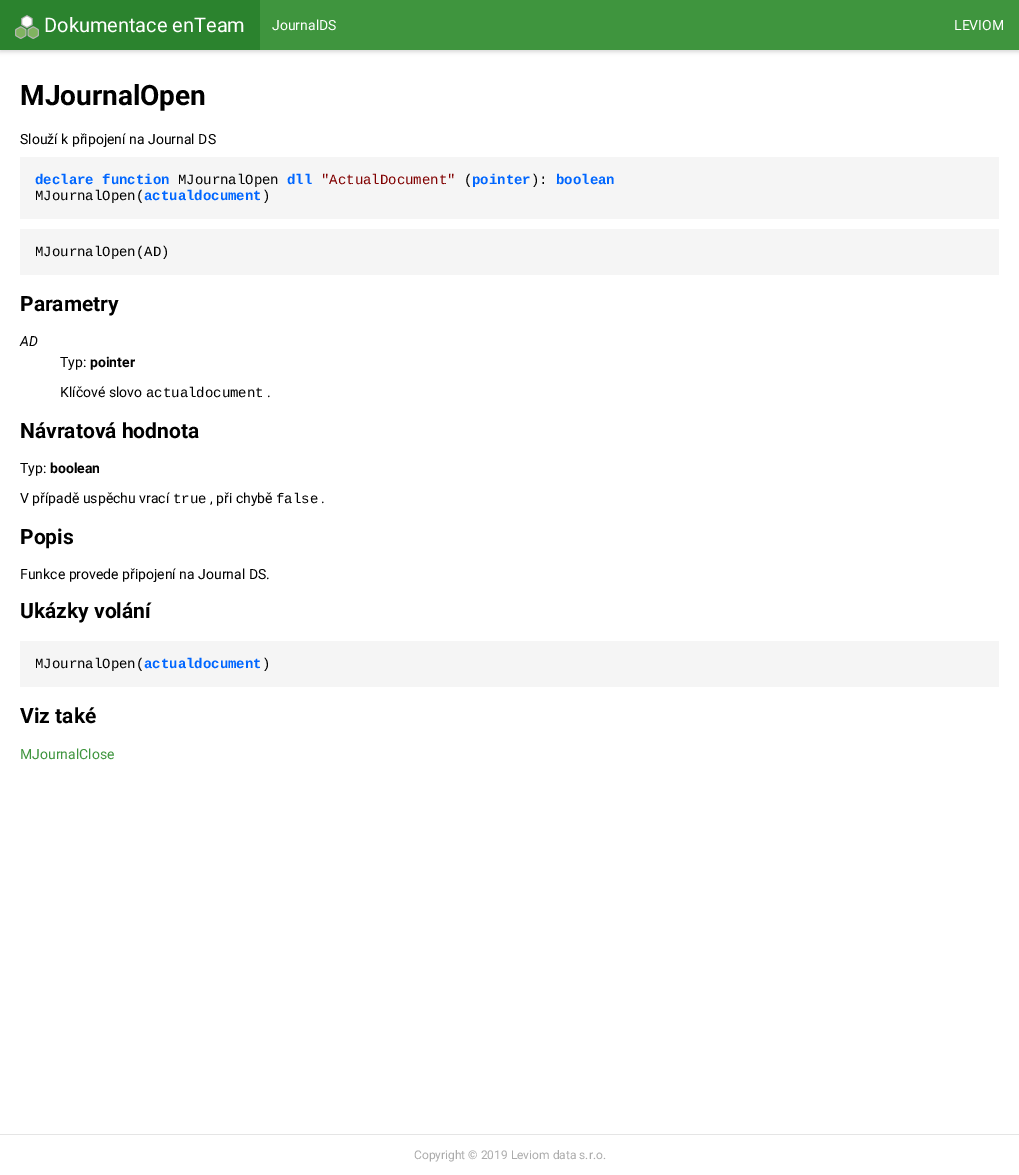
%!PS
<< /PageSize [1019 1175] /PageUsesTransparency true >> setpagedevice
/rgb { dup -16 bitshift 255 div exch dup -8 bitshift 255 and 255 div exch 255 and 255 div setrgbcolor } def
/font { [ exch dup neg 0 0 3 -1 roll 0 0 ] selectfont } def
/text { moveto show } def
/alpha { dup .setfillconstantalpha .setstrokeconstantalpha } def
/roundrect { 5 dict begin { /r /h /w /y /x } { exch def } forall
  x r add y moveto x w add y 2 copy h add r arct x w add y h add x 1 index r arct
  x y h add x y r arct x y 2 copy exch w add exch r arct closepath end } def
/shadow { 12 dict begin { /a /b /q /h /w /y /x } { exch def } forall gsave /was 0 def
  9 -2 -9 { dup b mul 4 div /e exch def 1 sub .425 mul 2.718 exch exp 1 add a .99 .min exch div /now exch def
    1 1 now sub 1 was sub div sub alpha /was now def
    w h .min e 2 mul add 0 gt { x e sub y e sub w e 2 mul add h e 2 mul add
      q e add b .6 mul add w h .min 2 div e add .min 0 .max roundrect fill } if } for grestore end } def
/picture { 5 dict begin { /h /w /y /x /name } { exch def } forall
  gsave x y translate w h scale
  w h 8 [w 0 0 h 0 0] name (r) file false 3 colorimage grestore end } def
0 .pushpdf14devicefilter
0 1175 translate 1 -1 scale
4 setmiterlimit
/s1 { /Roboto-Regular 20 font 16#FFFFFF rgb } def
/s2 { /Roboto-Regular 14 font 16#FFFFFF rgb } def
/s3 { /Roboto-Bold 28 font 16#000000 rgb } def
/s4 { /Roboto-Regular 14 font 16#000000 rgb } def
/s5 { /LiberationMono-Bold 14 font 16#0066FF rgb } def
/s6 { /LiberationMono-Regular 14 font 16#000000 rgb } def
/s7 { /LiberationMono-Regular 14 font 16#800000 rgb } def
/s8 { /Roboto-Bold 21 font 16#000000 rgb } def
/s9 { /Roboto-Italic 14 font 16#000000 rgb } def
/s10 { /Roboto-Bold 14 font 16#000000 rgb } def
/s11 { /Roboto-Regular 14 font 16#3F953E rgb } def
/s12 { /Roboto-Regular 12 font 16#ABABAB rgb } def
16#FFFFFF rgb
0 0 1019 1175 rectfill
16#000000 rgb
0 2 1019 50 0 2 0.15 shadow
16#3F953E rgb
260 0 759 50 rectfill
16#2B832E rgb
0 0 260 50 rectfill
(pic1.raw) 15 15 24 24 picture
s1
(Dokumentace enTeam) 44 32 text
s2
(JournalDS) 272 30 text
(LEVIOM) 954 30 text
s3
(MJournalOpen) 20 105 text
s4
(Slouží k připojení na Journal DS) 20 144 text
16#F5F5F5 rgb
20 157 979 62 rectfill
s5
(declare function) 35 184 text
s6
(MJournalOpen) 178 184 text
s5
(dll) 287 184 text
s7
("ActualDocument") 321 184 text
s6
(\() 464 184 text
s5
(pointer) 472 184 text
s6
(\):) 531 184 text
s5
(boolean) 556 184 text
s6
(MJournalOpen\() 35 200 text
s5
(actualdocument) 144 200 text
s6
(\)) 262 200 text
16#F5F5F5 rgb
20 229 979 46 rectfill
s6
(MJournalOpen\(AD\)) 35 256 text
s8
(Parametry) 20 311 text
s9
(AD) 20 346 text
s4
(Typ:) 60 367 text
s10
(pointer) 90 367 text
s4
(Klíčové slovo) 60 397 text
s6
(actualdocument) 146 397 text
s4
(.) 267 397 text
s8
(Návratová hodnota) 20 438 text
s4
(Typ:) 20 473 text
s10
(boolean) 50 473 text
s4
(V případě uspěchu vrací) 20 503 text
s6
(true) 173 503 text
s4
(, při chybě) 210 503 text
s6
(false) 276 503 text
s4
(.) 321 503 text
s8
(Popis) 20 544 text
s4
(Funkce provede připojení na Journal DS.) 20 579 text
s8
(Ukázky volání) 20 618 text
16#F5F5F5 rgb
20 641 979 46 rectfill
s6
(MJournalOpen\() 35 668 text
s5
(actualdocument) 144 668 text
s6
(\)) 262 668 text
s8
(Viz také) 20 723 text
s11
(MJournalClose) 20 759 text
16#E5E5E5 rgb
0 1134 1019 1 rectfill
s12
(Copyright © 2019 Leviom data s.r.o.) 414 1159 text
.poppdf14devicefilter showpage
